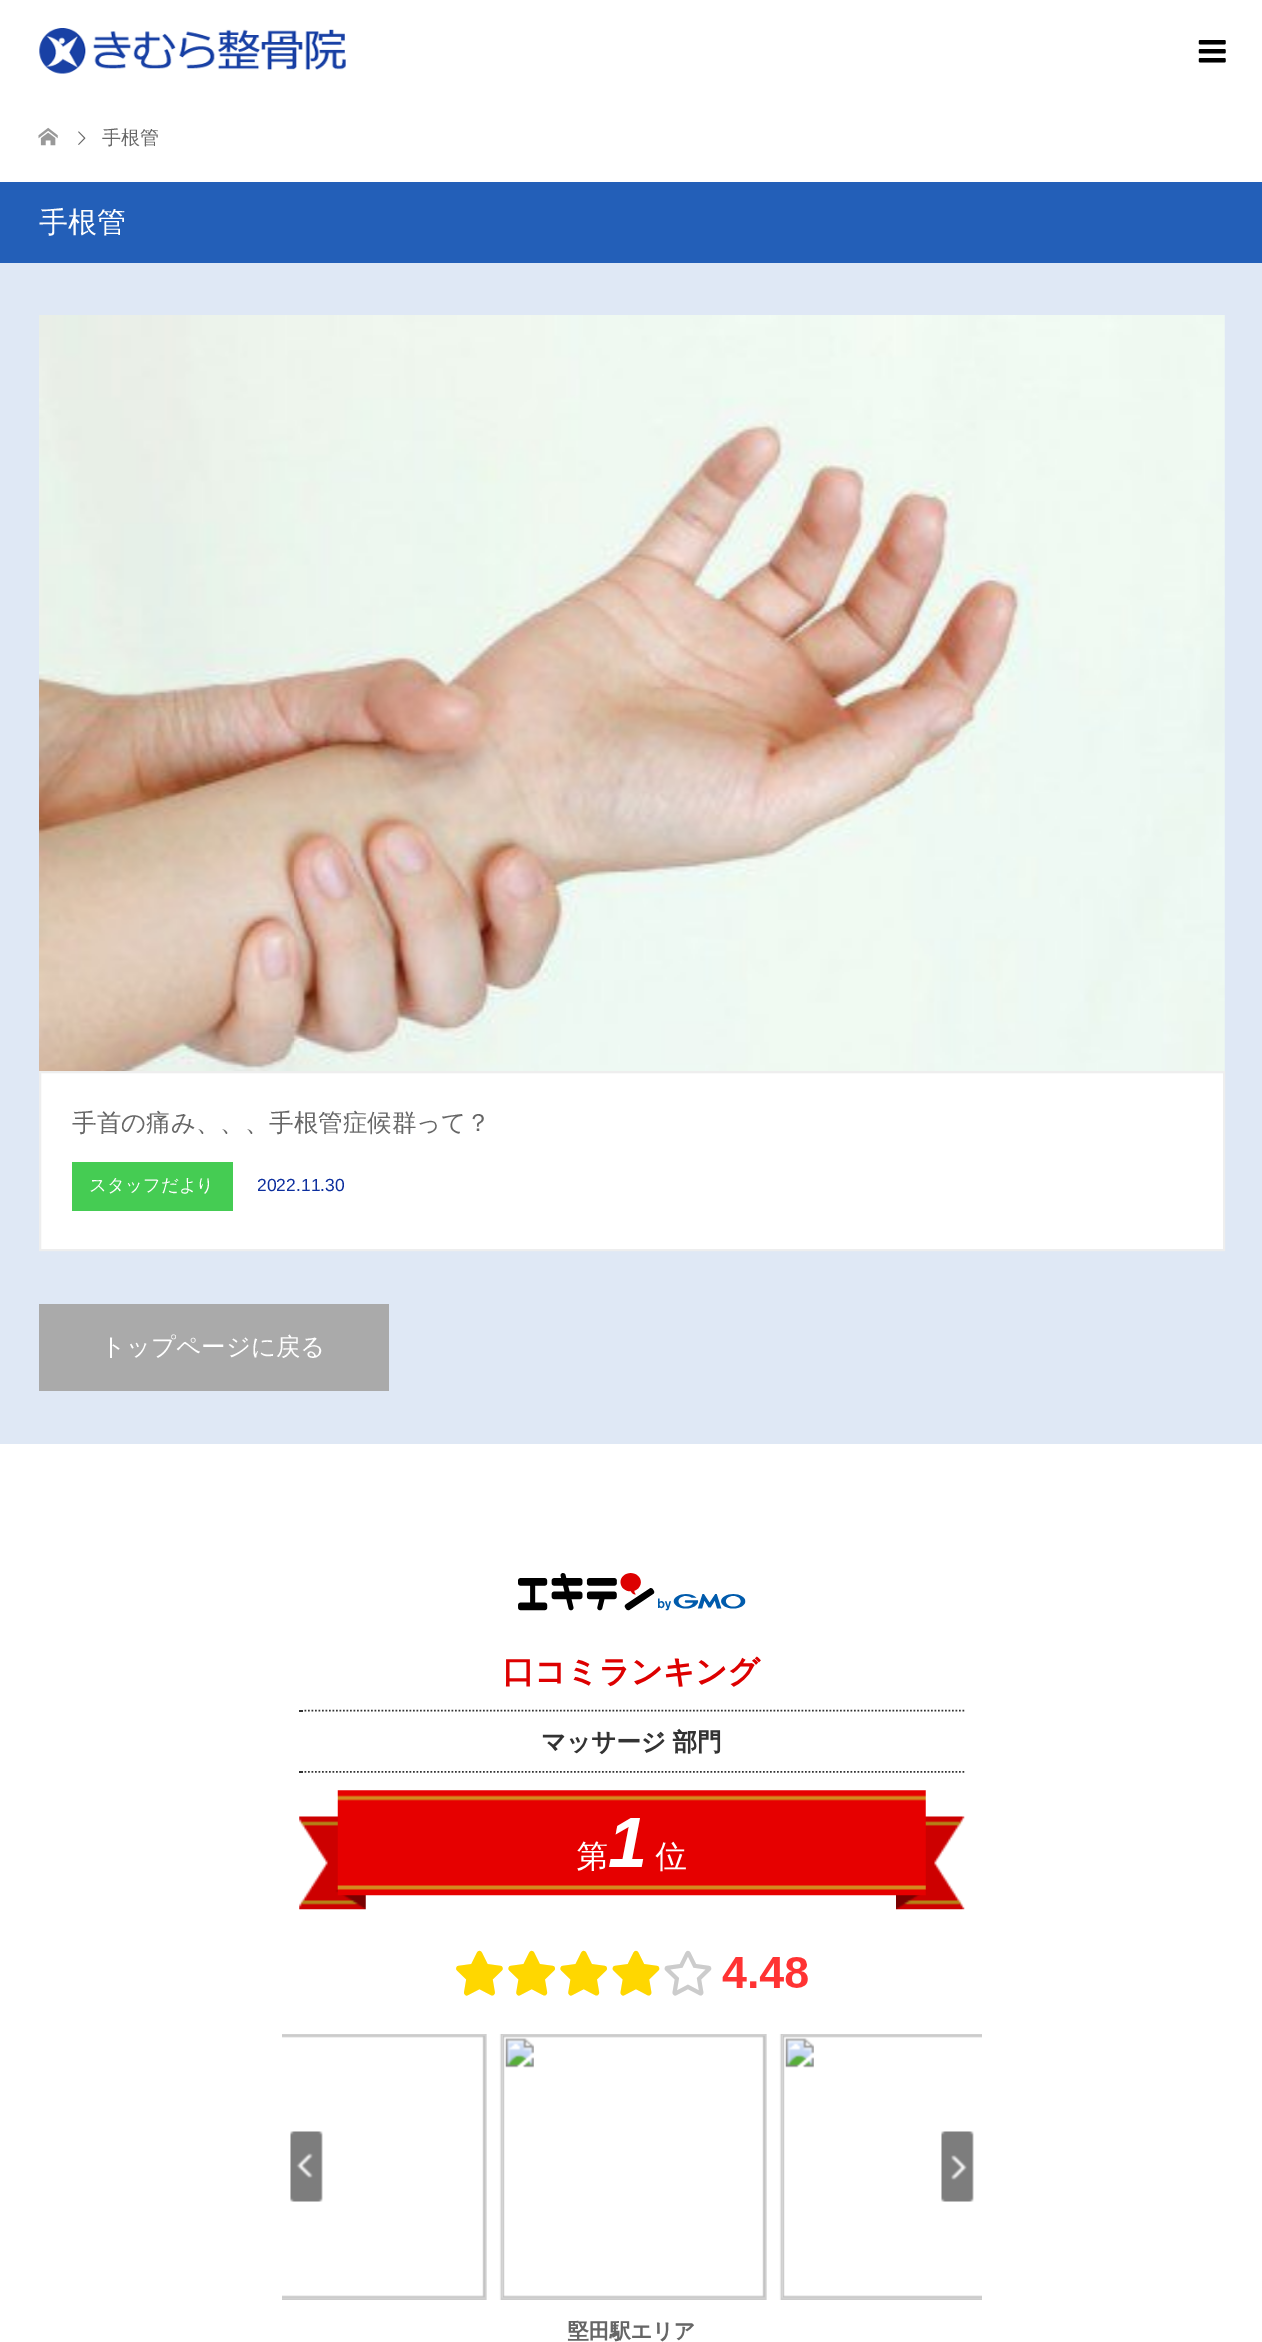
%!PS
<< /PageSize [1262 2342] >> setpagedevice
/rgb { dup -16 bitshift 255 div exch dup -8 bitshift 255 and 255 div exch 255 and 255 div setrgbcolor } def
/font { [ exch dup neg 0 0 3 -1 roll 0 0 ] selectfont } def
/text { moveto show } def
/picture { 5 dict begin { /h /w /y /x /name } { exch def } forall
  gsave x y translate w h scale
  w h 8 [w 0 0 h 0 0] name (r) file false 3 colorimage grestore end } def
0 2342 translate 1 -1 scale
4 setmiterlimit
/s1 { /WenQuanYiZenHei-Medium 19 font 16#666666 rgb } def
/s2 { /WenQuanYiZenHei-Medium 29 font 16#FFFFFF rgb } def
/s3 { /WenQuanYiZenHei-Medium 24.5 font 16#666666 rgb } def
/s4 { /WenQuanYiZenHei-Medium 17.5 font 16#FFFFFF rgb } def
/s5 { /LiberationSans-Regular 17.5 font 16#0D2F9E rgb } def
/s6 { /WenQuanYiZenHei-Medium 24.5 font 16#FFFFFF rgb } def
16#FFFFFF rgb
0 0 1262 2342 rectfill
(pic1.raw) 39 28 307 46 picture
(pic2.raw) 1198 40 28 23 picture
(pic3.raw) 38 127 20 19 picture
(pic4.raw) 78 131 8 14 picture
s1
(手根管) 102 144 text
16#235FB8 rgb
0 182 1262 81 rectfill
s2
(手根管) 39 232 text
16#DFE8F5 rgb
0 263 1262 1181 rectfill
(pic5.raw) 39 315 1186 756 picture
16#FFFFFF rgb
40 1072 moveto 1224 1072 lineto 1224 1250 lineto 40 1250 lineto closepath gsave fill grestore
16#EEEEEE rgb
2 setlinewidth
stroke
s3
(手首の痛み、、、手根管症候群って？) 72 1131 text
16#45CC53 rgb
72 1162 161 49 rectfill
s4
(スタッフだより) 89 1191 text
s5
(2022.11.30) 257 1191 text
16#AAAAAA rgb
39 1304 350 87 rectfill
s6
(トップページに戻る) 101 1355 text
(pic6.raw) 282 1573 700 769 picture
showpage
